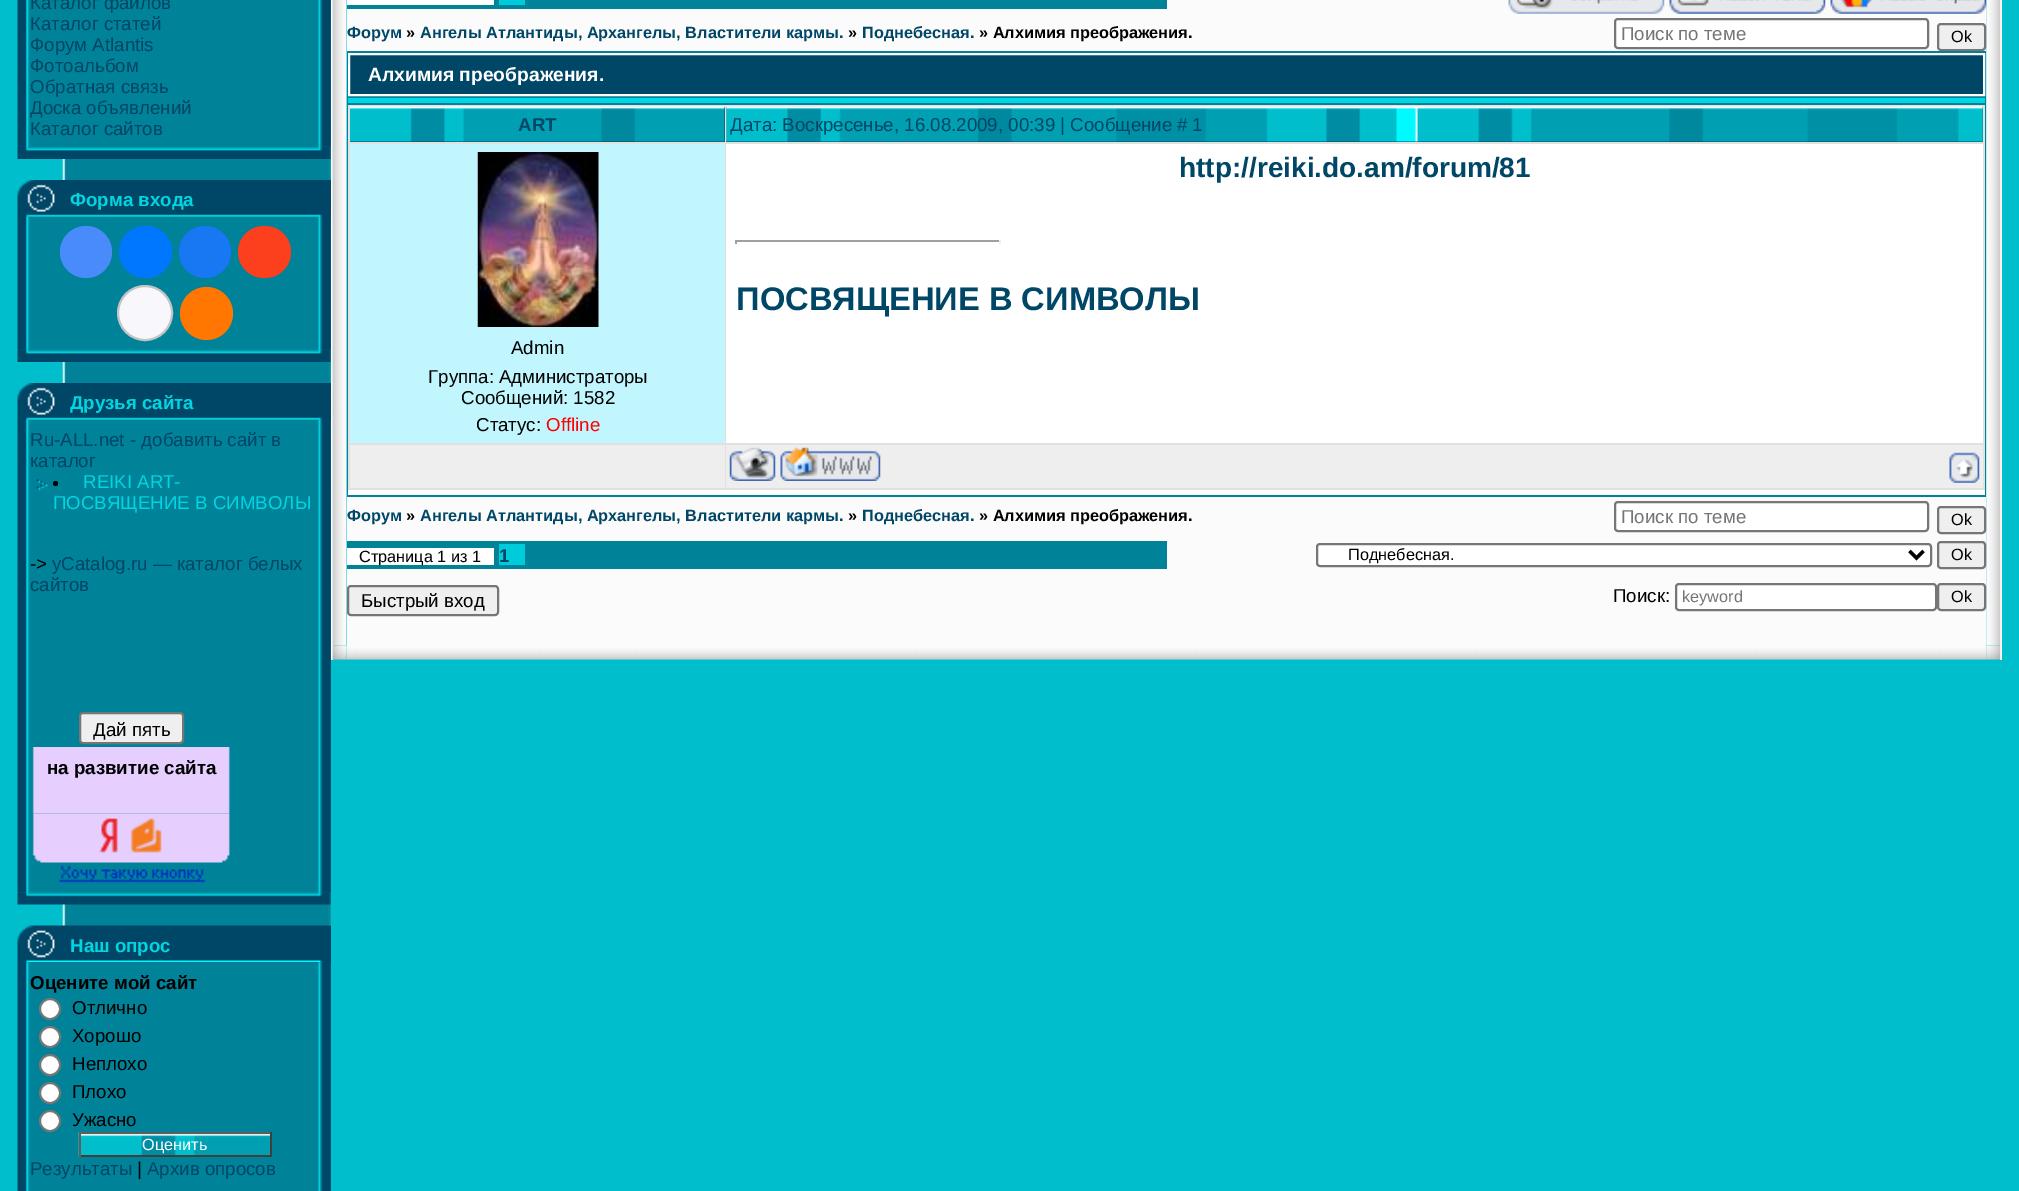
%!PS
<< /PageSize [2019 1191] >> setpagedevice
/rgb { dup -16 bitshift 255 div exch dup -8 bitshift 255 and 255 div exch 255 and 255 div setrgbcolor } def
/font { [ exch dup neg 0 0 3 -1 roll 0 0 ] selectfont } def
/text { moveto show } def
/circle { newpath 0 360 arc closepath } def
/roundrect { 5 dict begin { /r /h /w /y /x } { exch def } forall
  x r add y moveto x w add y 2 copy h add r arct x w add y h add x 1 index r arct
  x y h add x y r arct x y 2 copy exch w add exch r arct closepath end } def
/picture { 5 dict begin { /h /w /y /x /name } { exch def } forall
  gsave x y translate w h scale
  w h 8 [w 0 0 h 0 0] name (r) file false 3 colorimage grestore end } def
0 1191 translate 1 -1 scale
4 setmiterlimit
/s1 { /LiberationSans-Regular 18.7 font 16#004666 rgb } def
/s2 { /LiberationSans-Bold 18.7 font 16#00D6E1 rgb } def
/s3 { /LiberationSans-Regular 18.7 font 16#00D6E1 rgb } def
/s4 { /LiberationSans-Regular 18.7 font 16#000000 rgb } def
/s5 { /LiberationSans-Bold 18.7 font 16#000000 rgb } def
/s6 { /LiberationSans-Regular 16.3 font 16#FFFFFF rgb } def
/s7 { /LiberationSans-Bold 16.3 font 16#004666 rgb } def
/s8 { /LiberationSans-Bold 16.3 font 16#000000 rgb } def
/s9 { /LiberationSans-Regular 18.7 font 16#757575 rgb } def
/s10 { /LiberationSans-Regular 16.3 font 16#000000 rgb } def
/s11 { /LiberationSans-Bold 19.25 font 16#FFFFFF rgb } def
/s12 { /LiberationSans-Bold 18.7 font 16#004666 rgb } def
/s13 { /LiberationSans-Bold 28 font 16#004666 rgb } def
/s14 { /LiberationSans-Bold 32.7 font 16#004666 rgb } def
/s15 { /LiberationSans-Regular 18.7 font 16#FF0000 rgb } def
/s16 { /LiberationSans-Regular 16.3 font 16#757575 rgb } def
16#00BECC rgb
0 0 2019 1191 rectfill
(pic1.raw) 62 147 269 1044 picture
16#008299 rgb
18 0 313 147 rectfill
(pic2.raw) 17 0 314 147 picture
s1
(Каталог файлов) 30 9 text
(Каталог статей) 30 30 text
(Форум Atlantis) 30 51 text
(Фотоальбом) 30 72 text
(Обратная связь) 30 93 text
(Доска объявлений) 30 114 text
(Каталог сайтов) 30 135 text
(pic3.raw) 17 146 314 13 picture
18 180 313 37 rectfill
(pic4.raw) 17 180 306 37 picture
s2
(Форма входа) 70 206 text
16#008299 rgb
18 217 313 133 rectfill
(pic5.raw) 17 216 314 134 picture
16#498BFA rgb
86 252 26 circle fill
16#0077FF rgb
119 226 53 52 26 roundrect fill
16#1877F2 rgb
205 252 26 circle fill
16#FC3F1D rgb
238 226 53 52 26 roundrect fill
16#F8F8FC rgb
145 313 27 circle gsave fill grestore
16#C4C4C4 rgb
2 setlinewidth
stroke
16#FF7700 rgb
206.5 313.5 26.5 circle fill
(pic3.raw) 17 349 314 13 picture
16#004666 rgb
18 383 313 37 rectfill
(pic4.raw) 17 383 306 37 picture
s2
(Друзья сайта) 70 409 text
16#008299 rgb
18 420 313 473 rectfill
(pic6.raw) 17 419 314 474 picture
s1
(Ru-ALL.net - добавить сайт в) 30 446 text
(каталог) 30 467 text
(pic7.raw) 36 479 12 12 picture
16#000000 rgb
55.5 483.5 2.5 circle fill
s3
(REIKI ART-) 83 488 text
(ПОСВЯЩЕНИЕ В СИМВОЛЫ) 53 509 text
s4
(->) 30 570 text
s1
(yCatalog.ru — каталог белых) 52 570 text
(сайтов) 30 591 text
16#EFEFEF rgb
80 713 103 30 3 roundrect gsave fill grestore
16#767676 rgb
stroke
s4
(Дай пять) 93 736 text
(pic8.raw) 32 747 198 67 picture
s5
(на развитие сайта) 47 774 text
(pic9.raw) 32 813 198 70 picture
(pic10.raw) 17 892 314 13 picture
16#004666 rgb
18 926 313 37 rectfill
(pic11.raw) 17 925 314 38 picture
s2
(Наш опрос) 70 952 text
(pic12.raw) 17 962 314 229 picture
s5
(Оцените мой сайт) 30 989 text
16#FFFFFF rgb
50 1009 10 circle gsave fill grestore
16#767676 rgb
stroke
s4
(Отлично) 72 1014 text
16#FFFFFF rgb
50 1037 10 circle gsave fill grestore
16#767676 rgb
stroke
s4
(Хорошо) 72 1042 text
16#FFFFFF rgb
50 1065 10 circle gsave fill grestore
16#767676 rgb
stroke
s4
(Неплохо) 72 1070 text
16#FFFFFF rgb
50 1093 10 circle gsave fill grestore
16#767676 rgb
stroke
s4
(Плохо) 72 1098 text
16#FFFFFF rgb
50 1121 10 circle gsave fill grestore
16#767676 rgb
stroke
s4
(Ужасно) 72 1126 text
(pic13.raw) 78 1132 192 25 picture
16#615E58 rgb
79 1132 192 2 rectfill
16#413F3B rgb
270 1132 2 25 rectfill
79 1155 192 2 rectfill
16#615E58 rgb
79 1132 2 25 rectfill
s6
(Оценить) 142 1150 text
s1
(Результаты) 30 1175 text
s4
(|) 137 1175 text
s1
(Архив опросов) 147 1175 text
16#FFFFFF rgb
2000 0 2 660 rectfill
331 0 2 660 rectfill
(pic14.raw) 332 0 15 646 picture
16#FBFBFB rgb
347 0 1639 646 rectfill
16#008299 rgb
347 0 820 9 rectfill
16#FFFFFF rgb
347 0 147 5 rectfill
16#00CBDA rgb
499 0 26 5 rectfill
(pic15.raw) 1508 0 157 14 picture
(pic16.raw) 1669 0 157 14 picture
(pic24.raw) 1986 0 15 646 picture
(pic17.raw) 1830 0 157 14 picture
s7
(Форум) 347 38 text
s8
(») 406 38 text
s7
(Ангелы Атлантиды, Архангелы, Властители кармы.) 420 38 text
s8
(») 848 38 text
s7
(Поднебесная.) 862 38 text
s8
(» Алхимия преображения.) 979 38 text
16#FFFFFF rgb
1615 19 313 29 3 roundrect gsave fill grestore
16#767676 rgb
stroke
s9
(Поиск по теме) 1621 40 text
16#EFEFEF rgb
1938 24 47 26 3 roundrect gsave fill grestore
16#767676 rgb
stroke
s10
(Ok) 1951 42 text
16#008299 rgb
347 51 1639 446 rectfill
16#004666 rgb
349 54 moveto 1984 54 lineto 1984 95 lineto 349 95 lineto closepath gsave fill grestore
16#FFFFFF rgb
stroke
s11
(Алхимия преображения.) 368 81 text
16#00D6E1 rgb
348 98 1637 5 rectfill
16#FFFFFF rgb
348 490 1637 5 rectfill
16#E1E1E1 rgb
348 105 1637 385 rectfill
16#004666 rgb
350 107 375 35 rectfill
(pic18.raw) 350 106 375 36 picture
s12
(ART) 518 131 text
726 107 1257 35 rectfill
(pic19.raw) 726 106 1257 36 picture
s1
(Дата: Воскресенье, 16.08.2009, 00:39 | Сообщение #) 730 131 text
(1) 1192 131 text
16#FFFFFF rgb
726 144 1257 299 rectfill
s13
(http://reiki.do.am/forum/81) 1179 177 text
16#9F9F9F rgb
735 240 266 2 rectfill
16#EEEEEE rgb
999 240 2 4 rectfill
16#9F9F9F rgb
735 240 2 4 rectfill
s14
(ПОСВЯЩЕНИЕ В СИМВОЛЫ) 736 310 text
16#C2F6FF rgb
350 144 375 299 rectfill
(pic20.raw) 477 152 122 175 picture
s4
(Admin) 511 354 text
(Группа: Администраторы) 428 383 text
(Сообщений: 1582) 461 404 text
(Статус:) 476 431 text
s15
(Offline) 546 431 text
16#EEEEEE rgb
350 445 375 43 rectfill
726 445 1257 43 rectfill
(pic21.raw) 729 447 47 34 picture
(pic22.raw) 780 447 101 34 picture
(pic23.raw) 1949 452 31 31 picture
s7
(Форум) 347 521 text
s8
(») 406 521 text
s7
(Ангелы Атлантиды, Архангелы, Властители кармы.) 420 521 text
s8
(») 848 521 text
s7
(Поднебесная.) 862 521 text
s8
(» Алхимия преображения.) 979 521 text
16#FFFFFF rgb
1615 502 313 29 3 roundrect gsave fill grestore
16#767676 rgb
stroke
s9
(Поиск по теме) 1621 523 text
16#EFEFEF rgb
1938 507 47 26 3 roundrect gsave fill grestore
16#767676 rgb
stroke
s10
(Ok) 1951 525 text
16#008299 rgb
347 541 820 28 rectfill
16#FFFFFF rgb
347 548 147 17 rectfill
s10
(Страница 1 из 1) 359 562 text
16#00CBDA rgb
499 544 26 21 rectfill
s12
(1) 499 562 text
16#FFFFFF rgb
1317 544 614 22 3 roundrect gsave fill grestore
16#767676 rgb
stroke
16#000000 rgb
3.5 setlinewidth
1909.5 551 moveto 1916.5 558 lineto 1923.5 551 lineto stroke
s10
(Поднебесная.) 1348 560 text
16#EFEFEF rgb
1938 542 47 26 3 roundrect gsave fill grestore
16#767676 rgb
2 setlinewidth
stroke
s10
(Ok) 1951 560 text
16#EFEFEF rgb
348 586 150 29 3 roundrect gsave fill grestore
16#767676 rgb
stroke
s4
(Быстрый вход) 361 607 text
(Поиск:) 1613 602 text
16#FFFFFF rgb
1676 584 260 26 3 roundrect gsave fill grestore
16#767676 rgb
stroke
s16
(keyword) 1682 602 text
16#EFEFEF rgb
1938 584 47 26 3 roundrect gsave fill grestore
16#767676 rgb
stroke
s10
(Ok) 1951 602 text
(pic26.raw) 346 645 1641 15 picture
(pic25.raw) 332 645 15 15 picture
(pic27.raw) 1986 645 15 15 picture
showpage
